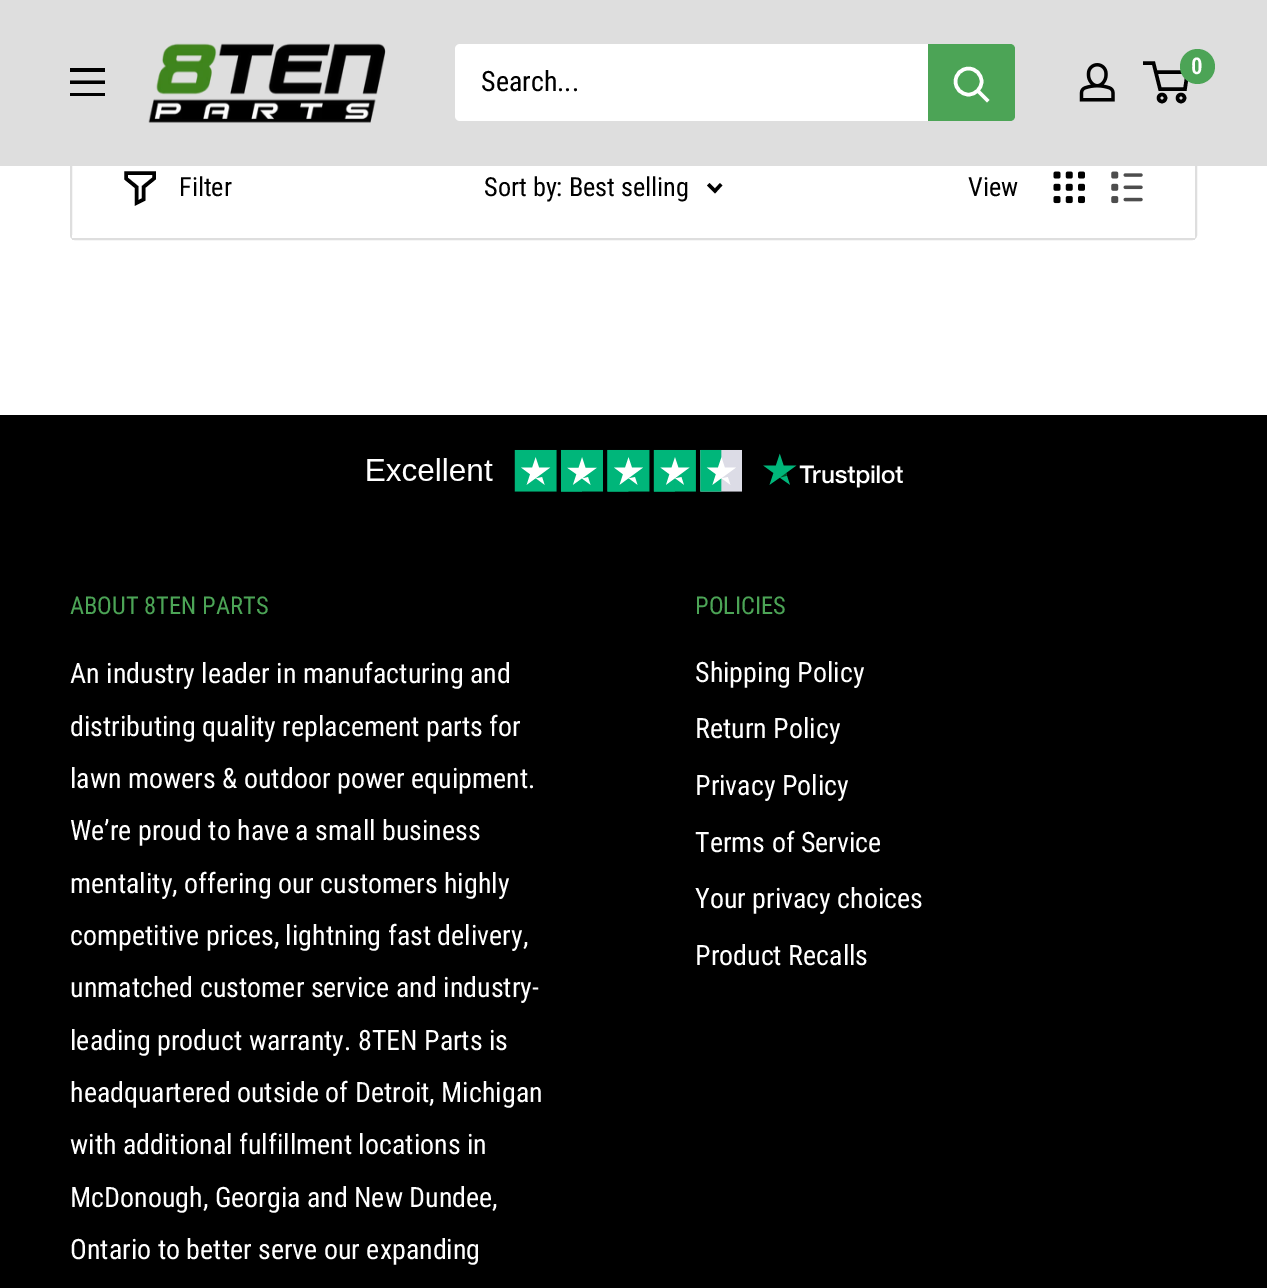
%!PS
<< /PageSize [1267 1288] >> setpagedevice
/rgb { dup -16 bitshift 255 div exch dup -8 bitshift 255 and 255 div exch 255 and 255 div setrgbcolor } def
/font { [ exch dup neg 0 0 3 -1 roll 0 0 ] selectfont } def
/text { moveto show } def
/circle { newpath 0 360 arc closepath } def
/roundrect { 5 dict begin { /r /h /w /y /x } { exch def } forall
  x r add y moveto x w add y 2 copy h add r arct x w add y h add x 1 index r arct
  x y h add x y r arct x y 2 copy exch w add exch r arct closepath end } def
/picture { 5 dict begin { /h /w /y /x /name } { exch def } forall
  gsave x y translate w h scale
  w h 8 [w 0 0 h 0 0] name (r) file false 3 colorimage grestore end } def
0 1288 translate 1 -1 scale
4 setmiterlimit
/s1 { /RobotoCondensed-SemiBold 23 font 16#FFFFFF rgb } def
/s2 { /RobotoCondensed-Regular 28 font 16#000000 rgb } def
/s3 { /RobotoCondensed-Regular 26.25 font 16#000000 rgb } def
/s4 { /RobotoCondensed-Regular 24.5 font 16#4CA456 rgb } def
/s5 { /RobotoCondensed-Regular 28 font 16#FFFFFF rgb } def
16#FFFFFF rgb
0 0 1267 1288 rectfill
16#DEDEDE rgb
2 setlinewidth
71 -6 1125 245 4 roundrect stroke
0 0 1267 166 rectfill
(pic1.raw) 148 43 238 80 picture
(pic2.raw) 1079 63 36 39 picture
16#000000 rgb
3.5 setlinewidth
1162 98 3.5 circle stroke
1181 98 3.5 circle stroke
1155.5 72 moveto 1187.5 72 lineto 1185 89 lineto 1160 89 lineto 1153.5 63 lineto 1143 63 lineto stroke
16#4CA456 rgb
1197.5 66.5 17.5 circle fill
s1
(0) 1191 74 text
16#000000 rgb
70 93 moveto 105 93 lineto 105 96 lineto 70 96 lineto closepath 70 68 moveto 105 68 lineto 105 72 lineto 70 72 lineto closepath 70 80.5 moveto 105 80.5 lineto 105 84 lineto 70 84 lineto closepath eofill
16#FFFFFF rgb
455 44 560 77 5 roundrect fill
s2
(Search...) 481 91 text
16#4CA456 rgb
928 44 moveto 1010 44 lineto 1013 44 1015 46 1015 49 curveto 1015 116 lineto 1015 119 1013 121 1010 121 curveto 928 121 lineto closepath fill
16#FFFFFF rgb
2 setlinecap
987 100 moveto 978 91 lineto stroke
0 setlinecap
968.5 81.5 13 circle stroke
16#DEDEDE rgb
72 239 1123 1 rectfill
16#FFFFFF rgb
72 235 1123 3 rectfill
16#000000 rgb
2 setlinecap
154 178.5 moveto 143.5 187 lineto 143.5 199.5 lineto 136.5 203 lineto 136.5 187 lineto 126 178.5 lineto 126 173 lineto 154 173 lineto closepath stroke
s3
(Filter) 179 196 text
(Sort by: Best selling) 484 196 text
3.3 setlinewidth
720 185.5 moveto 715 191 lineto 709.5 185.5 lineto stroke
(View) 968 196 text
(pic3.raw) 1053 171 32 33 picture
(pic4.raw) 1111 171 32 33 picture
0 415 1267 873 rectfill
(pic5.raw) 367 449 536 43 picture
s4
(ABOUT 8TEN PARTS) 70 614 text
s5
(An industry leader in manufacturing and) 70 683 text
(distributing quality replacement parts for) 70 736 text
(lawn mowers & outdoor power equipment.) 70 788 text
(We’re proud to have a small business) 70 840 text
(mentality, offering our customers highly) 70 893 text
(competitive prices, lightning fast delivery,) 70 945 text
(unmatched customer service and industry-) 70 997 text
(leading product warranty. 8TEN Parts is) 70 1050 text
(headquartered outside of Detroit, Michigan) 70 1102 text
(with additional fulfillment locations in) 70 1154 text
(McDonough, Georgia and New Dundee,) 70 1207 text
(Ontario to better serve our expanding) 70 1259 text
s4
(POLICIES) 695 614 text
s5
(Shipping Policy) 695 682 text
(Return Policy) 695 738 text
(Privacy Policy) 695 795 text
(Terms of Service) 695 852 text
(Your privacy choices) 695 908 text
(Product Recalls) 695 965 text
showpage
